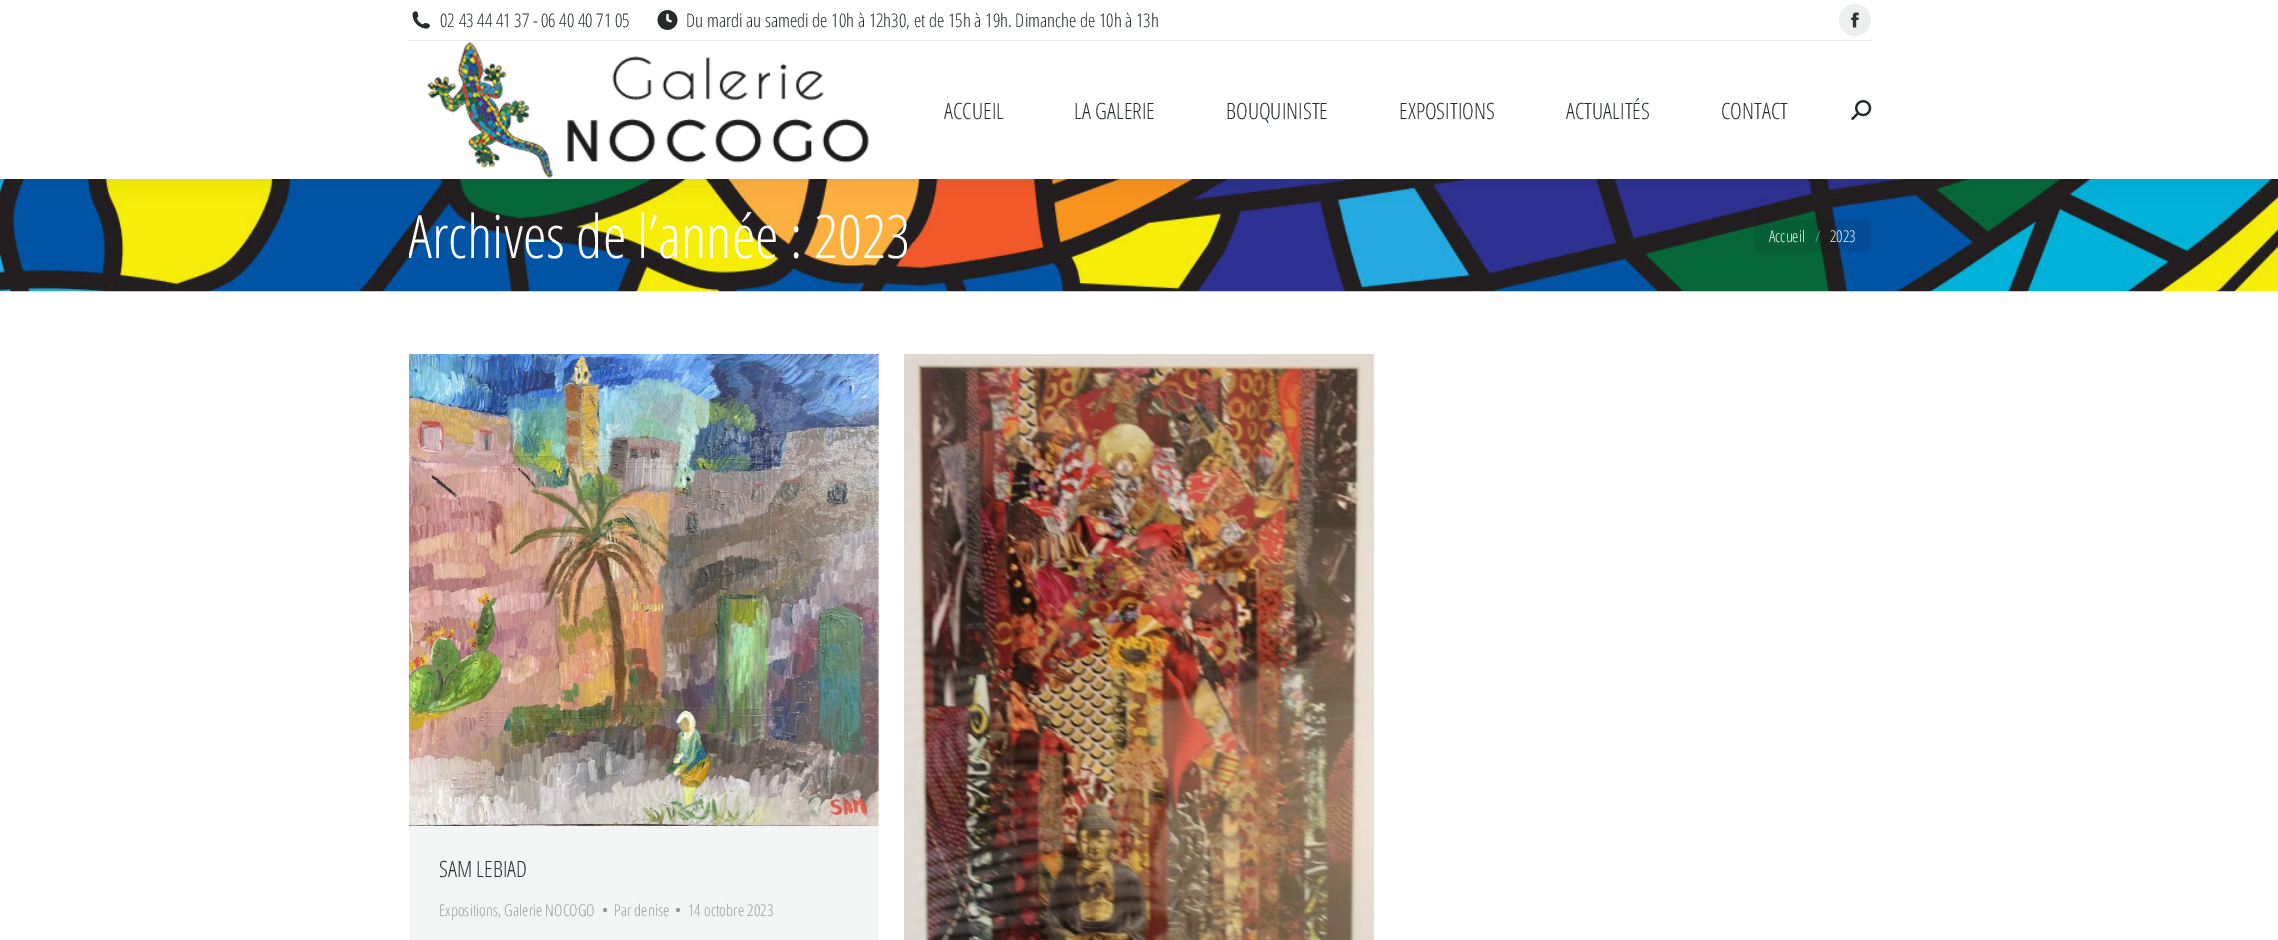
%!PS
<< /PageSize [2278 940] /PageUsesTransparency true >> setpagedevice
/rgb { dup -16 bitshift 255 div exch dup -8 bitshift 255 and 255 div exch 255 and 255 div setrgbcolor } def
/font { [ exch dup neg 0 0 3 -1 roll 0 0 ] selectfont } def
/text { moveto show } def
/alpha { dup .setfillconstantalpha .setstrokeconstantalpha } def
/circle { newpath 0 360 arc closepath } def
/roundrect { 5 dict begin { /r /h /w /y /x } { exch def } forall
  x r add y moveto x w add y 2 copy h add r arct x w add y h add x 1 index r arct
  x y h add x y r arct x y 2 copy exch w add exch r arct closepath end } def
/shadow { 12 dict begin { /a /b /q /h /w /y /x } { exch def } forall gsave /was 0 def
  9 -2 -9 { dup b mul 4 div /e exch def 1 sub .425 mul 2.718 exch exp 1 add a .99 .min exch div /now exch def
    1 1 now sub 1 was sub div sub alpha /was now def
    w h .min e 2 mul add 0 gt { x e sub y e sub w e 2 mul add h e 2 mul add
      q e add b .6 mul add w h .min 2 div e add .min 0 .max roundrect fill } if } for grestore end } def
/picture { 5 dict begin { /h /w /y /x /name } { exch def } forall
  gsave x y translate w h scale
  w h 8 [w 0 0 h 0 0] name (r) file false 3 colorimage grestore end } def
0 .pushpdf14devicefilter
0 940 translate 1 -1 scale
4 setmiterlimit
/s1 { /OpenSansCondensed-Light 18.75 font 16#262B2E rgb } def
/s2 { /OpenSansCondensed-Light 22.5 font 16#262B2E rgb } def
/s3 { /OpenSansCondensed-Light 60 font 16#FFFFFF rgb } def
/s4 { /OpenSansCondensed-Light 16.25 font 16#FFFFFF rgb } def
/s5 { /OpenSansCondensed-Light 16.25 font 16#85A797 rgb } def
/s6 { /OpenSansCondensed-Light 16.25 font 16#999999 rgb } def
16#FFFFFF rgb
0 0 2278 940 rectfill
(pic6.raw) 0 179 2278 113 picture
16#000000 rgb
-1 -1 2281 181 0 9.5 0.07 shadow
16#FFFFFF rgb
0 0 2278 179 rectfill
(pic1.raw) 412 11 18 18 picture
s1
(02 43 44 41 37 - 06 40 40 71 05) 440 27 text
(pic2.raw) 657 10 21 20 picture
(Du mardi au samedi de 10h à 12h30, et de 15h à 19h. Dimanche de 10h à 13h) 686 27 text
16#EDEEEE rgb
1855 20 16 circle fill
(pic3.raw) 1851 12 8 16 picture
16#E7E7E8 rgb
409 40 1462 1 rectfill
(pic4.raw) 427 42 442 136 picture
s2
(ACCUEIL) 944 119 text
(LA GALERIE) 1074 119 text
(BOUQUINISTE) 1226 119 text
(EXPOSITIONS) 1399 119 text
(ACTUALITÉS) 1566 119 text
(CONTACT) 1721 119 text
(pic5.raw) 1851 100 21 20 picture
gsave
409 200 501 70 rectclip
s3
(Archives de l’année :) 408 258 text
grestore
s3
(2023) 814 258 text
0.1 alpha
16#0F1213 rgb
1754 220 117 31 4 roundrect fill
1 alpha
s4
(Accueil) 1769 242 text
s5
(/) 1815 242 text
s4
(2023) 1830 242 text
16#F3F4F4 rgb
409 354 470 586 rectfill
(pic7.raw) 409 354 470 472 picture
s2
(SAM LEBIAD) 439 877 text
s6
(Expositions, Galerie NOCOGO) 439 916 text
605 910 2 circle fill
(Par denise) 614 916 text
678 910 2 circle fill
(14 octobre 2023) 688 916 text
(pic8.raw) 904 354 470 586 picture
.poppdf14devicefilter showpage
